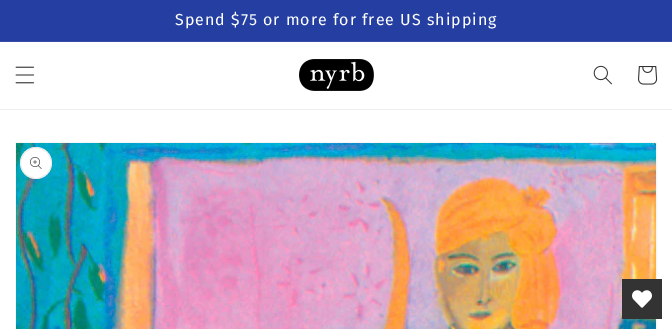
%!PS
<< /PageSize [672 329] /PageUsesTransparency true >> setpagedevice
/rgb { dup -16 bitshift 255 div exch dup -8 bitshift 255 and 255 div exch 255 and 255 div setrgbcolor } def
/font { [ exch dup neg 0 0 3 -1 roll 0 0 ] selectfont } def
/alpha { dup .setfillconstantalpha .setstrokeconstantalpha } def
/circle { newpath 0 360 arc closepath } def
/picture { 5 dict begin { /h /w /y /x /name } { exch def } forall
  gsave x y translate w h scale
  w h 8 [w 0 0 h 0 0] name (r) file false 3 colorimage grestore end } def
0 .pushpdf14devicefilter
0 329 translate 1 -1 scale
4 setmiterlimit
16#FFFFFF rgb
0 0 672 329 rectfill
16#243FA1 rgb
0 0 672 41 rectfill
16#364EA9 rgb
0 41 672 1 rectfill
/FiraSans-Regular 16 font
16#FFFFFF rgb
175 25 moveto 1 0 (Spend $75 or more for free US shipping) ashow
16#EFEFEF rgb
0 109 672 1 rectfill
(pic1.raw) 15 66 20 18 picture
(pic2.raw) 299 59 75 32 picture
(pic3.raw) 593 65 19 20 picture
(pic4.raw) 638 66 20 19 picture
16#F5F5F5 rgb
15.5 142.5 641 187 rectstroke
(pic5.raw) 16 143 640 186 picture
16#FFFFFF rgb
36 163 16 circle fill
0.1 alpha
16#333333 rgb
36 163 15.5 circle stroke
1 alpha
(pic6.raw) 30 157 12 12 picture
622 279 40 40 rectfill
(pic7.raw) 632 290 20 18 picture
.poppdf14devicefilter showpage
